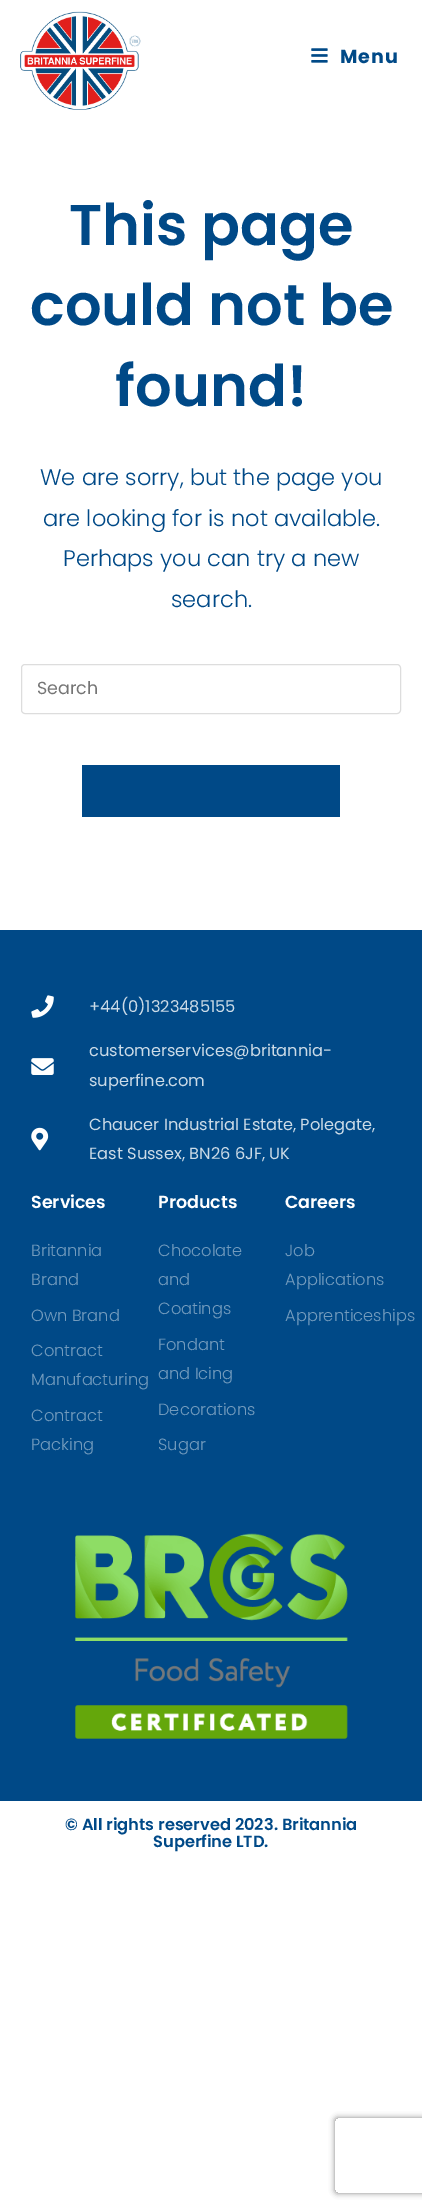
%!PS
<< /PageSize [422 2210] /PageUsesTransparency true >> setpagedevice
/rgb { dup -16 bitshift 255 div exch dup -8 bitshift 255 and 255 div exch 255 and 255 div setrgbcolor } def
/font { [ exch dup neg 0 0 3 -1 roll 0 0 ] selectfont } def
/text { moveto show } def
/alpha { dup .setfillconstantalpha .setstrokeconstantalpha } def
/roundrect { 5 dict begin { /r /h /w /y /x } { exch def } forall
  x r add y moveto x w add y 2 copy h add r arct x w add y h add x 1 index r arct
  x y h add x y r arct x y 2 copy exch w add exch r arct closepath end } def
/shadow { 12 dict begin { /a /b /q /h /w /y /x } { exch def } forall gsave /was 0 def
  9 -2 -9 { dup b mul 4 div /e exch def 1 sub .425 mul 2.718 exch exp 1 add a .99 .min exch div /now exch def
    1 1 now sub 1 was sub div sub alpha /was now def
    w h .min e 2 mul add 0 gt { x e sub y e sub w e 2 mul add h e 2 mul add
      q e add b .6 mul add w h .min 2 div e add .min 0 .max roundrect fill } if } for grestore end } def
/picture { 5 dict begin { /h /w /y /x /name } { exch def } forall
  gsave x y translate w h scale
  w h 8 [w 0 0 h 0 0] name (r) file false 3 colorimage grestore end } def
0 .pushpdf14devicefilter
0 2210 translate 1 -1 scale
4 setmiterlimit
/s1 { /Poppins-SemiBold 57.5 font 16#004987 rgb } def
/s2 { /Poppins-Light 22.5 font 16#004987 rgb } def
/s3 { /Poppins-Regular 17.5 font 16#757575 rgb } def
/s4 { /Poppins-Regular 16.25 font 16#CCDBE7 rgb } def
/s5 { /Poppins-SemiBold 17.5 font 16#FFFFFF rgb } def
/s6 { /Poppins-Light 16.25 font 16#739BBD rgb } def
/s7 { /Poppins-SemiBold 16.25 font 16#004987 rgb } def
16#FFFFFF rgb
0 0 422 2210 rectfill
(pic1.raw) 20 11 121 99 picture
(pic2.raw) 311 48 17 15 picture
/Poppins-Bold 19 font
16#004987 rgb
340 63 moveto 1 0 (Menu) ashow
s1
(This page) 69 245 text
(could not be) 30 325 text
(found!) 115 406 text
s2
(We are sorry, but the page you) 40 485 text
(are looking for is not available.) 43 526 text
(Perhaps you can try a new) 63 566 text
(search.) 171 607 text
16#DDDDDD rgb
21.5 664.5 379 49 3.5 roundrect stroke
s3
(Search) 37 694 text
16#004987 rgb
82 765 258 52 rectfill
0 930 422 871 rectfill
(pic3.raw) 31 995 23 23 picture
s4
(+44\(0\)1323485155) 89 1012 text
(pic4.raw) 31 1058 23 17 picture
(customerservices@britannia-) 89 1056 text
(superfine.com) 89 1086 text
(pic5.raw) 31 1127 18 24 picture
(Chaucer Industrial Estate, Polegate,) 89 1130 text
(East Sussex, BN26 6JF, UK) 89 1159 text
s5
(Services) 31 1208 text
s6
(Britannia) 31 1256 text
(Brand) 31 1285 text
(Own Brand) 31 1321 text
(Contract) 31 1356 text
(Manufacturing) 31 1385 text
(Contract) 31 1421 text
(Packing) 31 1450 text
s5
(Products) 158 1208 text
s6
(Chocolate) 158 1256 text
(and) 158 1285 text
(Coatings) 158 1314 text
(Fondant) 158 1350 text
(and Icing) 158 1379 text
(Decorations) 158 1415 text
(Sugar) 158 1450 text
s5
(Careers) 285 1208 text
s6
(Job) 285 1256 text
(Applications) 285 1285 text
(Apprenticeships) 285 1321 text
(pic6.raw) 75 1533 273 206 picture
s7
(© All rights reserved 2023. Britannia) 65 1830 text
(Superfine LTD.) 153 1847 text
gsave
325 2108 moveto 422 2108 lineto 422 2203 lineto 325 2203 lineto closepath 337.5 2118 moveto 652.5 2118 lineto 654 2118 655 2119 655 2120.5 curveto 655 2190.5 lineto 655 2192 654 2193 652.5 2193 curveto 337.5 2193 lineto 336 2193 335 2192 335 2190.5 curveto 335 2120.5 lineto 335 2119 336 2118 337.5 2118 curveto closepath eoclip newpath
16#808080 rgb
335 2118 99 75 2.5 3 1 shadow
grestore
.poppdf14devicefilter showpage
